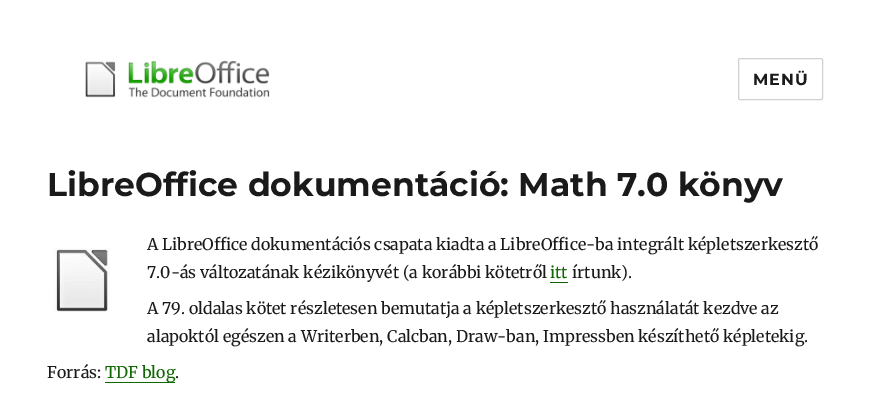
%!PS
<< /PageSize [895 395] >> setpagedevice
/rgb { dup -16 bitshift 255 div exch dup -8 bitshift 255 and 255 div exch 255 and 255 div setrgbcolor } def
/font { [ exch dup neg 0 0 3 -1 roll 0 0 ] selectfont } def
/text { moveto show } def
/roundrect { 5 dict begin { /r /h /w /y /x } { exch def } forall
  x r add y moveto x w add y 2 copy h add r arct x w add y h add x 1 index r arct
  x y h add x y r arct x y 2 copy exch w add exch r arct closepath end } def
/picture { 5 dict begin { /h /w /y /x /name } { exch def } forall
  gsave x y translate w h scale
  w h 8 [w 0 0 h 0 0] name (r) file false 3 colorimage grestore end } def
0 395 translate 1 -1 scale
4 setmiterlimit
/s1 { /Montserrat-Bold 33 font 16#1A1A1A rgb } def
/s2 { /Merriweather-Regular 16 font 16#1A1A1A rgb } def
/s3 { /Merriweather-Regular 16 font 16#106802 rgb } def
16#FFFFFF rgb
0 0 895 395 rectfill
(pic1.raw) 85 60 185 38 picture
16#D1D1D1 rgb
738.5 58.5 84 41 1.5 roundrect stroke
/Montserrat-Bold 16 font
16#1A1A1A rgb
753 85 moveto 1 0 (MENÜ) ashow
s1
(LibreOffice dokumentáció: Math 7.0 könyv) 47 196 text
s2
(A LibreOffice dokumentációs csapata kiadta a LibreOffice-ba integrált képletszerkesztő) 147 250 text
(pic2.raw) 53 248 57 64 picture
(7.0-ás változatának kézikönyvét \(a korábbi kötetről) 147 278 text
s3
(itt) 550 278 text
550 282 18 1 rectfill
s2
(írtunk\).) 572 278 text
(A 79. oldalas kötet részletesen bemutatja a képletszerkesztő használatát kezdve az) 147 314 text
(alapoktól egészen a Writerben, Calcban, Draw-ban, Impressben készíthető képletekig.) 147 342 text
(Forrás:) 47 378 text
16#106802 rgb
105 382 70 1 rectfill
(TDF blog) 105 378 text
s2
(.) 175 378 text
showpage
